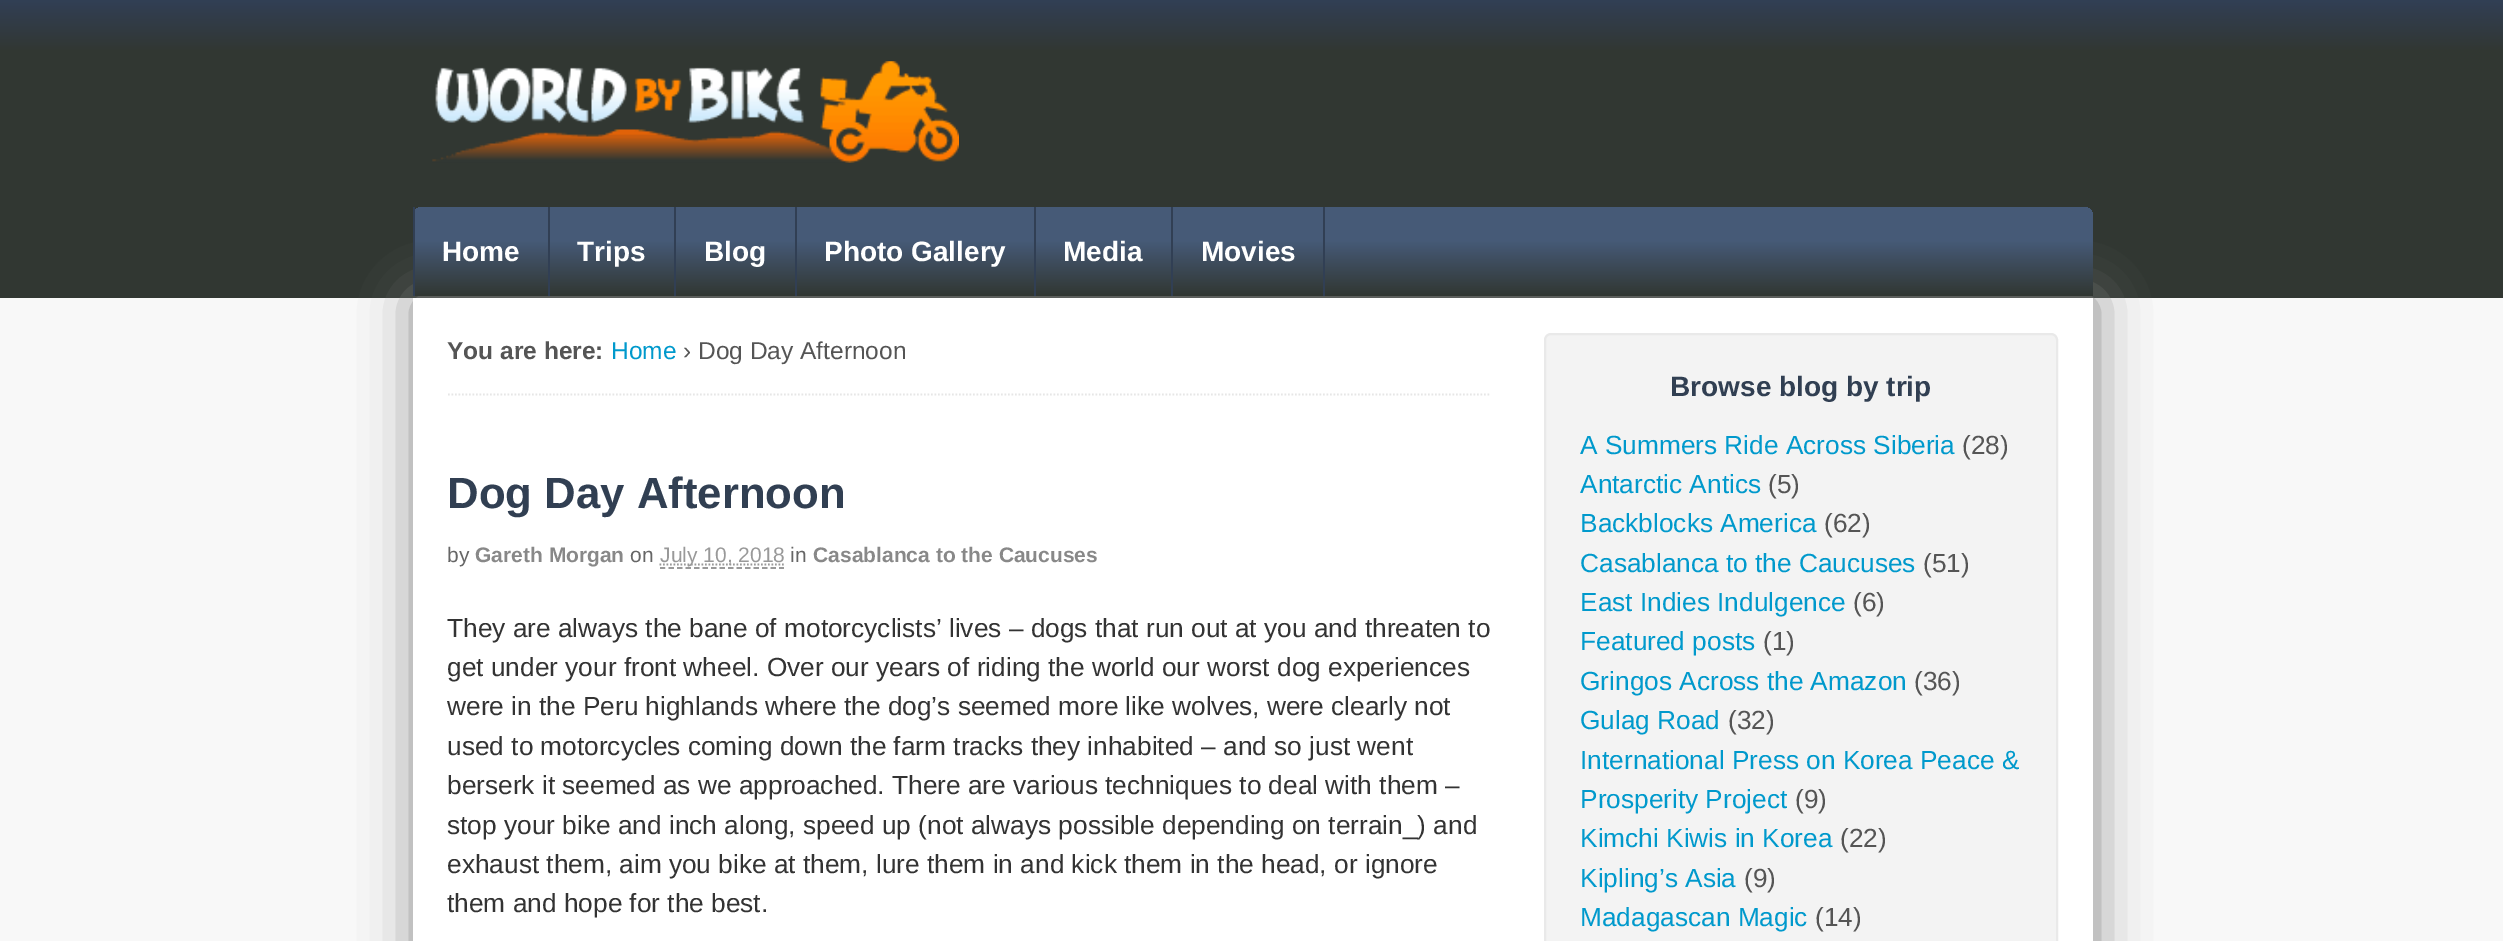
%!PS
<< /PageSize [2503 941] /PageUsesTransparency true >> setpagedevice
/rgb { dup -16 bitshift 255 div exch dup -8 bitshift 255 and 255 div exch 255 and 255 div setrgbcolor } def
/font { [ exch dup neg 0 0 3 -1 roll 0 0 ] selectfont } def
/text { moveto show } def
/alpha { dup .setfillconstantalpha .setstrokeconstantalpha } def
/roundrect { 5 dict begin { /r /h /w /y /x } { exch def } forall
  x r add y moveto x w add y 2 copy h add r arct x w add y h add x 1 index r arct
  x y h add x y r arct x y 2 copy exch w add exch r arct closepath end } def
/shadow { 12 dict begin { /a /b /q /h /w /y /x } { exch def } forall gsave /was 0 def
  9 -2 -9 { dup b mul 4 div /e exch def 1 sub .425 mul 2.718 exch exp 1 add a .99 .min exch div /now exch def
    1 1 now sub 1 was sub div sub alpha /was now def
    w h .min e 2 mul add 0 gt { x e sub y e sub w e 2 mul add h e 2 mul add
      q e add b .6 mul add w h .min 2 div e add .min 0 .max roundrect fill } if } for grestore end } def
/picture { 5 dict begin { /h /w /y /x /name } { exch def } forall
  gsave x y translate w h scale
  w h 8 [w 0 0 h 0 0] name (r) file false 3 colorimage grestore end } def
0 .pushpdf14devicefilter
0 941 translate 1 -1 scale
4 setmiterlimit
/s1 { /LiberationSans-Bold 28 font 16#FFFFFF rgb } def
/s2 { /LiberationSans-Bold 24.5 font 16#555555 rgb } def
/s3 { /LiberationSans-Regular 24.5 font 16#0099CC rgb } def
/s4 { /LiberationSans-Regular 24.5 font 16#555555 rgb } def
/s5 { /LiberationSans-Bold 43.75 font 16#313F52 rgb } def
/s6 { /LiberationSans-Regular 21 font 16#666666 rgb } def
/s7 { /LiberationSans-Bold 21 font 16#888888 rgb } def
/s8 { /LiberationSans-Regular 21 font 16#999999 rgb } def
/s9 { /LiberationSans-Regular 26.25 font 16#333333 rgb } def
/s10 { /LiberationSans-Bold 28 font 16#313F52 rgb } def
/s11 { /LiberationSans-Regular 26.25 font 16#0099CC rgb } def
/s12 { /LiberationSans-Regular 26.25 font 16#555555 rgb } def
16#F8F8F8 rgb
0 0 2503 941 rectfill
gsave 0 0 moveto 2503 0 lineto 2503 207 lineto 0 207 lineto closepath clip newpath
<< /ShadingType 2 /ColorSpace /DeviceRGB /Coords [1252 0 1252 207] /Extend [true true] /Function << /FunctionType 3 /Domain [0 1] /Functions [<< /FunctionType 2 /Domain [0 1] /C0 [0.192 0.247 0.329] /C1 [0.192 0.247 0.329] /N 1 >> << /FunctionType 2 /Domain [0 1] /C0 [0.192 0.247 0.329] /C1 [0.192 0.216 0.196] /N 1 >> << /FunctionType 2 /Domain [0 1] /C0 [0.192 0.216 0.196] /C1 [0.192 0.216 0.196] /N 1 >>] /Bounds [0.01 0.25] /Encode [0 1 0 1 0 1] >> >> shfill grestore
(pic1.raw) 432 61 527 102 picture
16#313732 rgb
0 207 2503 91 rectfill
16#888888 rgb
415 299 1680 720 0 26 1 shadow
gsave 422 207 moveto 2084 207 lineto 2089 207 2093 211 2093 216 curveto 2093 296 lineto 413 296 lineto 413 216 lineto 413 211 417 207 422 207 curveto closepath clip newpath
<< /ShadingType 2 /ColorSpace /DeviceRGB /Coords [1253 206 1253 296] /Extend [true true] /Function << /FunctionType 3 /Domain [0 1] /Functions [<< /FunctionType 2 /Domain [0 1] /C0 [0.275 0.353 0.467] /C1 [0.275 0.353 0.467] /N 1 >> << /FunctionType 2 /Domain [0 1] /C0 [0.275 0.353 0.467] /C1 [0.192 0.216 0.196] /N 1 >>] /Bounds [0.39] /Encode [0 1 0 1] >> >> shfill grestore
16#313F54 rgb
548 207 2 89 rectfill
413 207 2 89 rectfill
s1
(Home) 442 261 text
16#313F54 rgb
674 207 2 89 rectfill
s1
(Trips) 577 261 text
16#313F54 rgb
795 207 2 89 rectfill
s1
(Blog) 704 261 text
16#313F54 rgb
1034 207 2 89 rectfill
s1
(Photo Gallery) 824 261 text
16#313F54 rgb
1171 207 2 89 rectfill
s1
(Media) 1063 261 text
16#313F54 rgb
1323 207 2 89 rectfill
s1
(Movies) 1201 261 text
413 298 1680 643 rectfill
16#E6E6E6 rgb
1.8 setlinewidth
[1.75 1.75] 0 setdash
448 394.5 moveto 1491 394.5 lineto stroke
s2
(You are here:) 447 359 text
s3
(Home) 611 359 text
s4
(› Dog Day Afternoon) 683 359 text
s5
(Dog Day Afternoon) 447 508 text
s6
(by) 447 562 text
s7
(Gareth Morgan) 475 562 text
s6
(on) 630 562 text
16#999999 rgb
659.5 564.5 moveto 784.5 564.5 lineto stroke
(July 10, 2018) 660 562 text
[5.25 3.26] 0 setdash
660 568 moveto 784 568 lineto stroke
s6
(in) 790 562 text
s7
(Casablanca to the Caucuses) 813 562 text
s9
(They are always the bane of motorcyclists’ lives – dogs that run out at you and threaten to) 447 637 text
(get under your front wheel. Over our years of riding the world our worst dog experiences) 447 676 text
(were in the Peru highlands where the dog’s seemed more like wolves, were clearly not) 447 715 text
(used to motorcycles coming down the farm tracks they inhabited – and so just went) 447 755 text
(berserk it seemed as we approached. There are various techniques to deal with them –) 447 794 text
(stop your bike and inch along, speed up \(not always possible depending on terrain_\) and) 447 834 text
(exhaust them, aim you bike at them, lure them in and kick them in the head, or ignore) 447 873 text
(them and hope for the best.) 447 912 text
16#F3F3F3 rgb
1545 334 512 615 6 roundrect gsave fill grestore
16#E9E9E9 rgb
2 setlinewidth
[] 0 setdash
stroke
s10
(Browse blog by trip) 1670 396 text
s11
(A Summers Ride Across Siberia) 1580 454 text
s12
(\(28\)) 1962 454 text
s11
(Antarctic Antics) 1580 493 text
s12
(\(5\)) 1768 493 text
s11
(Backblocks America) 1580 532 text
s12
(\(62\)) 1824 532 text
s11
(Casablanca to the Caucuses) 1580 572 text
s12
(\(51\)) 1923 572 text
s11
(East Indies Indulgence) 1580 611 text
s12
(\(6\)) 1853 611 text
s11
(Featured posts) 1580 650 text
s12
(\(1\)) 1763 650 text
s11
(Gringos Across the Amazon) 1580 690 text
s12
(\(36\)) 1914 690 text
s11
(Gulag Road) 1580 729 text
s12
(\(32\)) 1728 729 text
s11
(International Press on Korea Peace &) 1580 769 text
(Prosperity Project) 1580 808 text
s12
(\(9\)) 1795 808 text
s11
(Kimchi Kiwis in Korea) 1580 847 text
s12
(\(22\)) 1840 847 text
s11
(Kipling’s Asia) 1580 887 text
s12
(\(9\)) 1744 887 text
s11
(Madagascan Magic) 1580 926 text
s12
(\(14\)) 1815 926 text
.poppdf14devicefilter showpage
